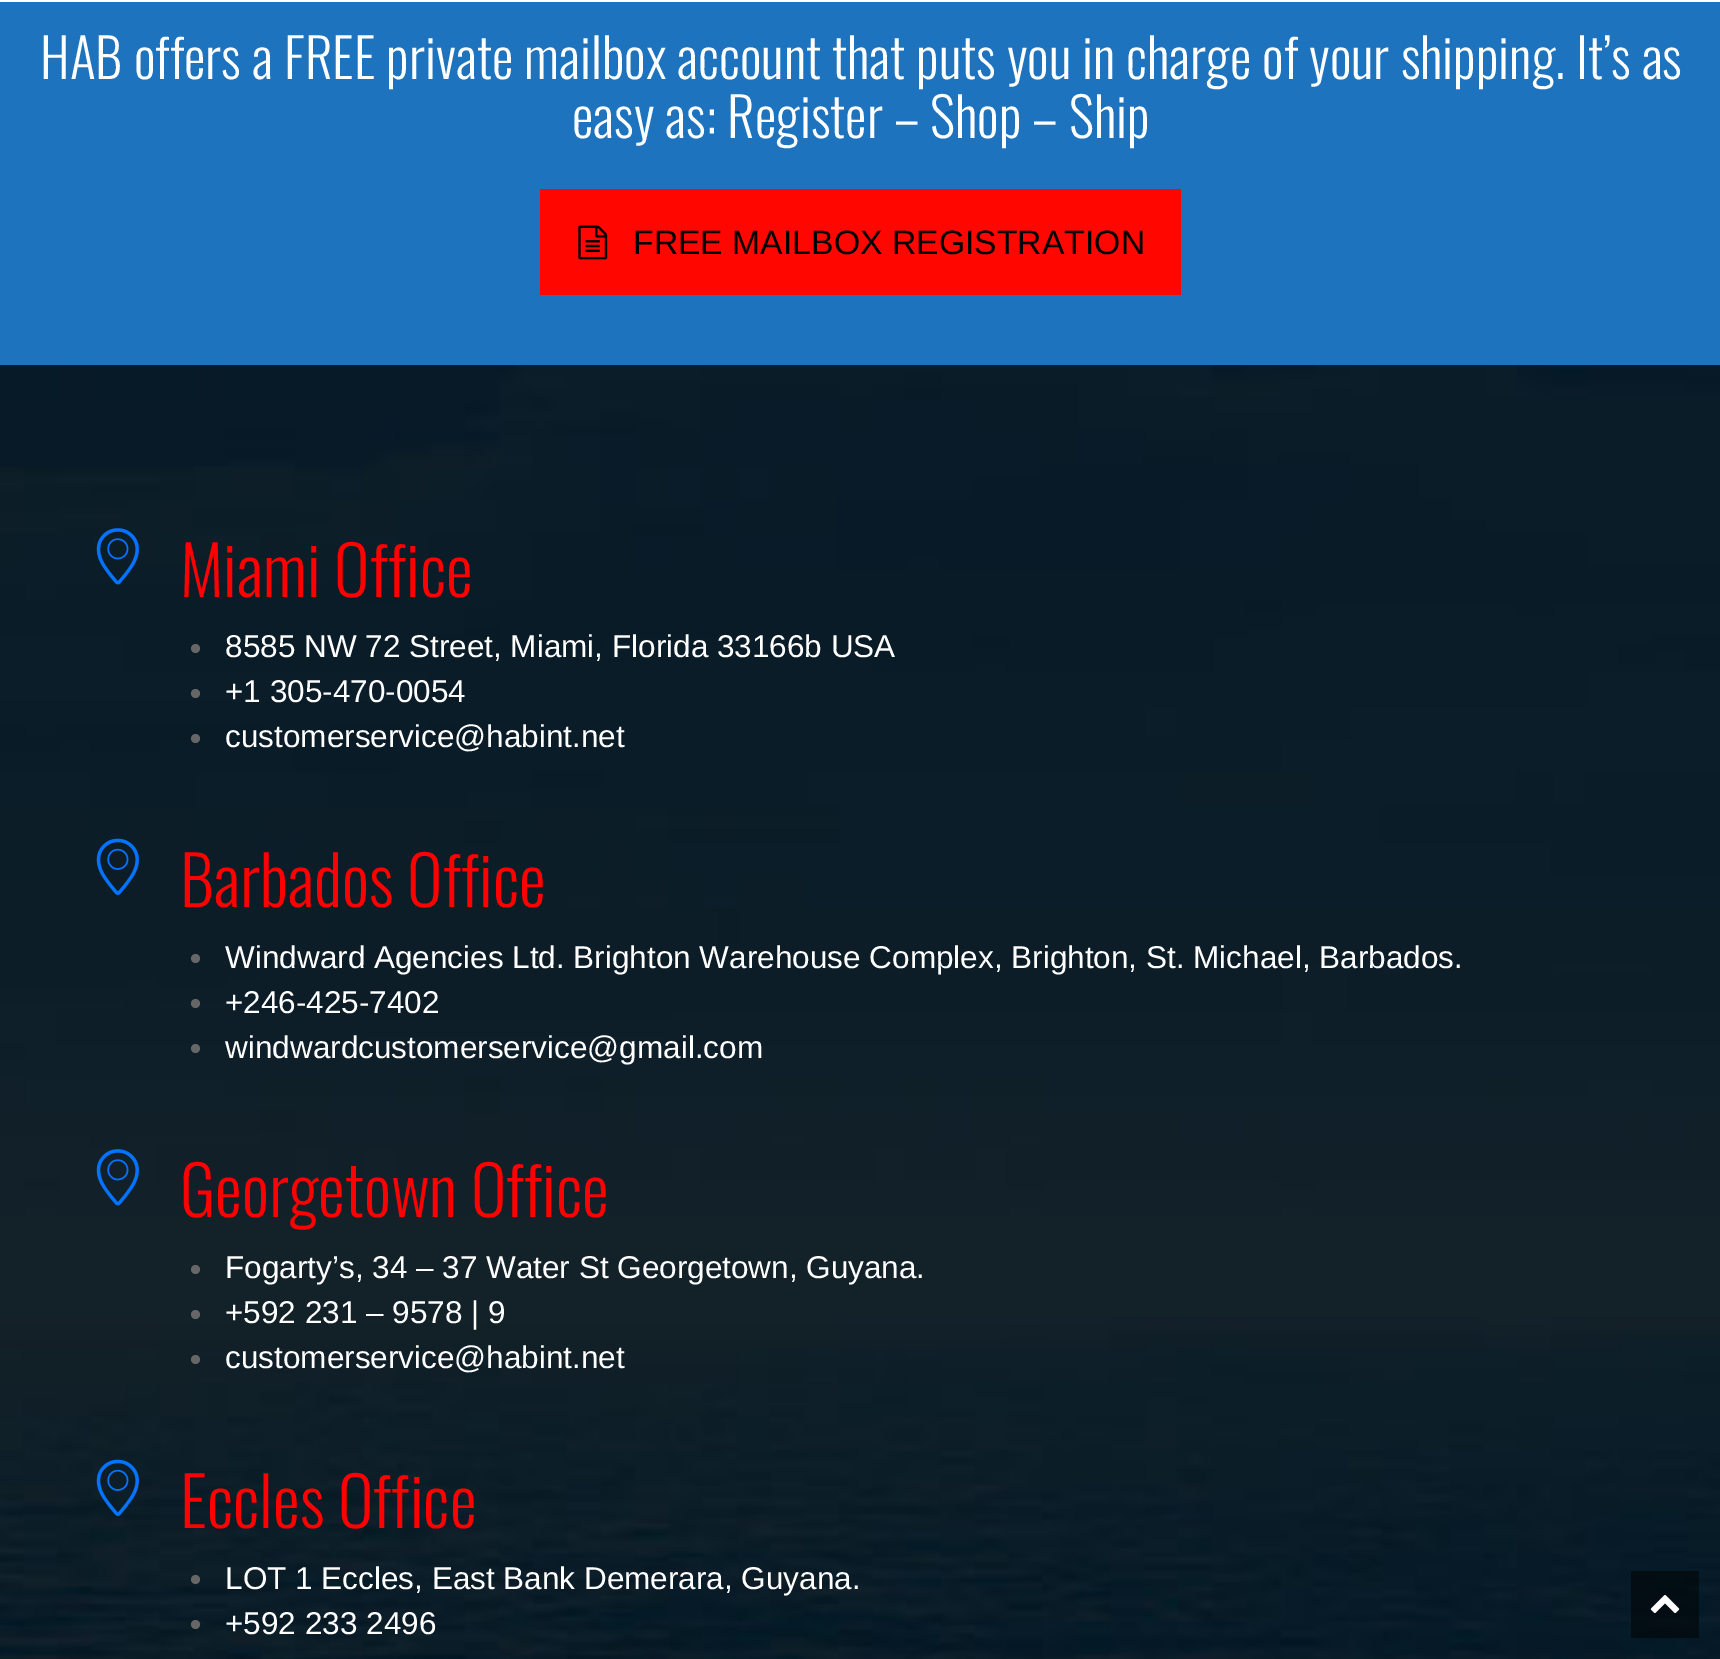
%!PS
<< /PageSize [1720 1659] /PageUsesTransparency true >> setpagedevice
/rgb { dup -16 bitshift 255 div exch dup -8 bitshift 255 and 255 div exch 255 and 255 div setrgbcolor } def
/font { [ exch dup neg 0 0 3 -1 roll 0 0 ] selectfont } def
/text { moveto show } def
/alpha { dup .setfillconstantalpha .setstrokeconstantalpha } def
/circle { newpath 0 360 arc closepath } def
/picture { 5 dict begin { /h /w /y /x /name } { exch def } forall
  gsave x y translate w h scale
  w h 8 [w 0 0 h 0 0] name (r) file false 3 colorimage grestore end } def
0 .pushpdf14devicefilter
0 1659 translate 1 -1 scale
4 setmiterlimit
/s1 { /Oswald-Light 54 font 16#FFFFFF rgb } def
/s2 { /LiberationSans-Regular 33.75 font 16#000000 rgb } def
/s3 { /Oswald-Light 67.5 font 16#FF0000 rgb } def
/s4 { /LiberationSans-Regular 31.5 font 16#FFFFFF rgb } def
16#FFFFFF rgb
0 0 1720 1659 rectfill
16#1E73BE rgb
0 2 1720 363 rectfill
s1
(HAB offers a FREE private mailbox account that puts you in charge of your shipping. It’s as) 40 79 text
(easy as: Register – Shop – Ship) 572 138 text
16#FF0700 rgb
540 189 641 106 rectfill
(pic1.raw) 578 225 30 35 picture
s2
(FREE MAILBOX REGISTRATION) 633 254 text
(pic2.raw) 0 365 1720 1294 picture
(pic3.raw) 96 528 43 57 picture
s3
(Miami Office) 180 597 text
16#666666 rgb
195.5 648.5 4.5 circle fill
s4
(8585 NW 72 Street, Miami, Florida 33166b USA) 225 657 text
16#666666 rgb
195.5 693.5 4.5 circle fill
s4
(+1 305-470-0054) 225 702 text
16#666666 rgb
195.5 738.5 4.5 circle fill
s4
(customerservice@habint.net) 225 747 text
(pic4.raw) 96 838 43 57 picture
s3
(Barbados Office) 180 907 text
16#666666 rgb
195.5 958.5 4.5 circle fill
s4
(Windward Agencies Ltd. Brighton Warehouse Complex, Brighton, St. Michael, Barbados.) 225 968 text
16#666666 rgb
195.5 1003.5 4.5 circle fill
s4
(+246-425-7402) 225 1013 text
16#666666 rgb
195.5 1048.5 4.5 circle fill
s4
(windwardcustomerservice@gmail.com) 225 1058 text
(pic5.raw) 96 1149 43 57 picture
s3
(Georgetown Office) 180 1217 text
16#666666 rgb
195.5 1269.5 4.5 circle fill
s4
(Fogarty’s, 34 – 37 Water St Georgetown, Guyana.) 225 1278 text
16#666666 rgb
195.5 1314.5 4.5 circle fill
s4
(+592 231 – 9578 | 9) 225 1323 text
16#666666 rgb
195.5 1359.5 4.5 circle fill
s4
(customerservice@habint.net) 225 1368 text
(pic6.raw) 96 1459 43 57 picture
s3
(Eccles Office) 180 1528 text
16#666666 rgb
195.5 1579.5 4.5 circle fill
s4
(LOT 1 Eccles, East Bank Demerara, Guyana.) 225 1589 text
16#666666 rgb
195.5 1624.5 4.5 circle fill
s4
(+592 233 2496) 225 1634 text
0.5 alpha
16#000000 rgb
1631 1571 68 67 rectfill
1 alpha
(pic7.raw) 1650 1595 30 19 picture
.poppdf14devicefilter showpage
